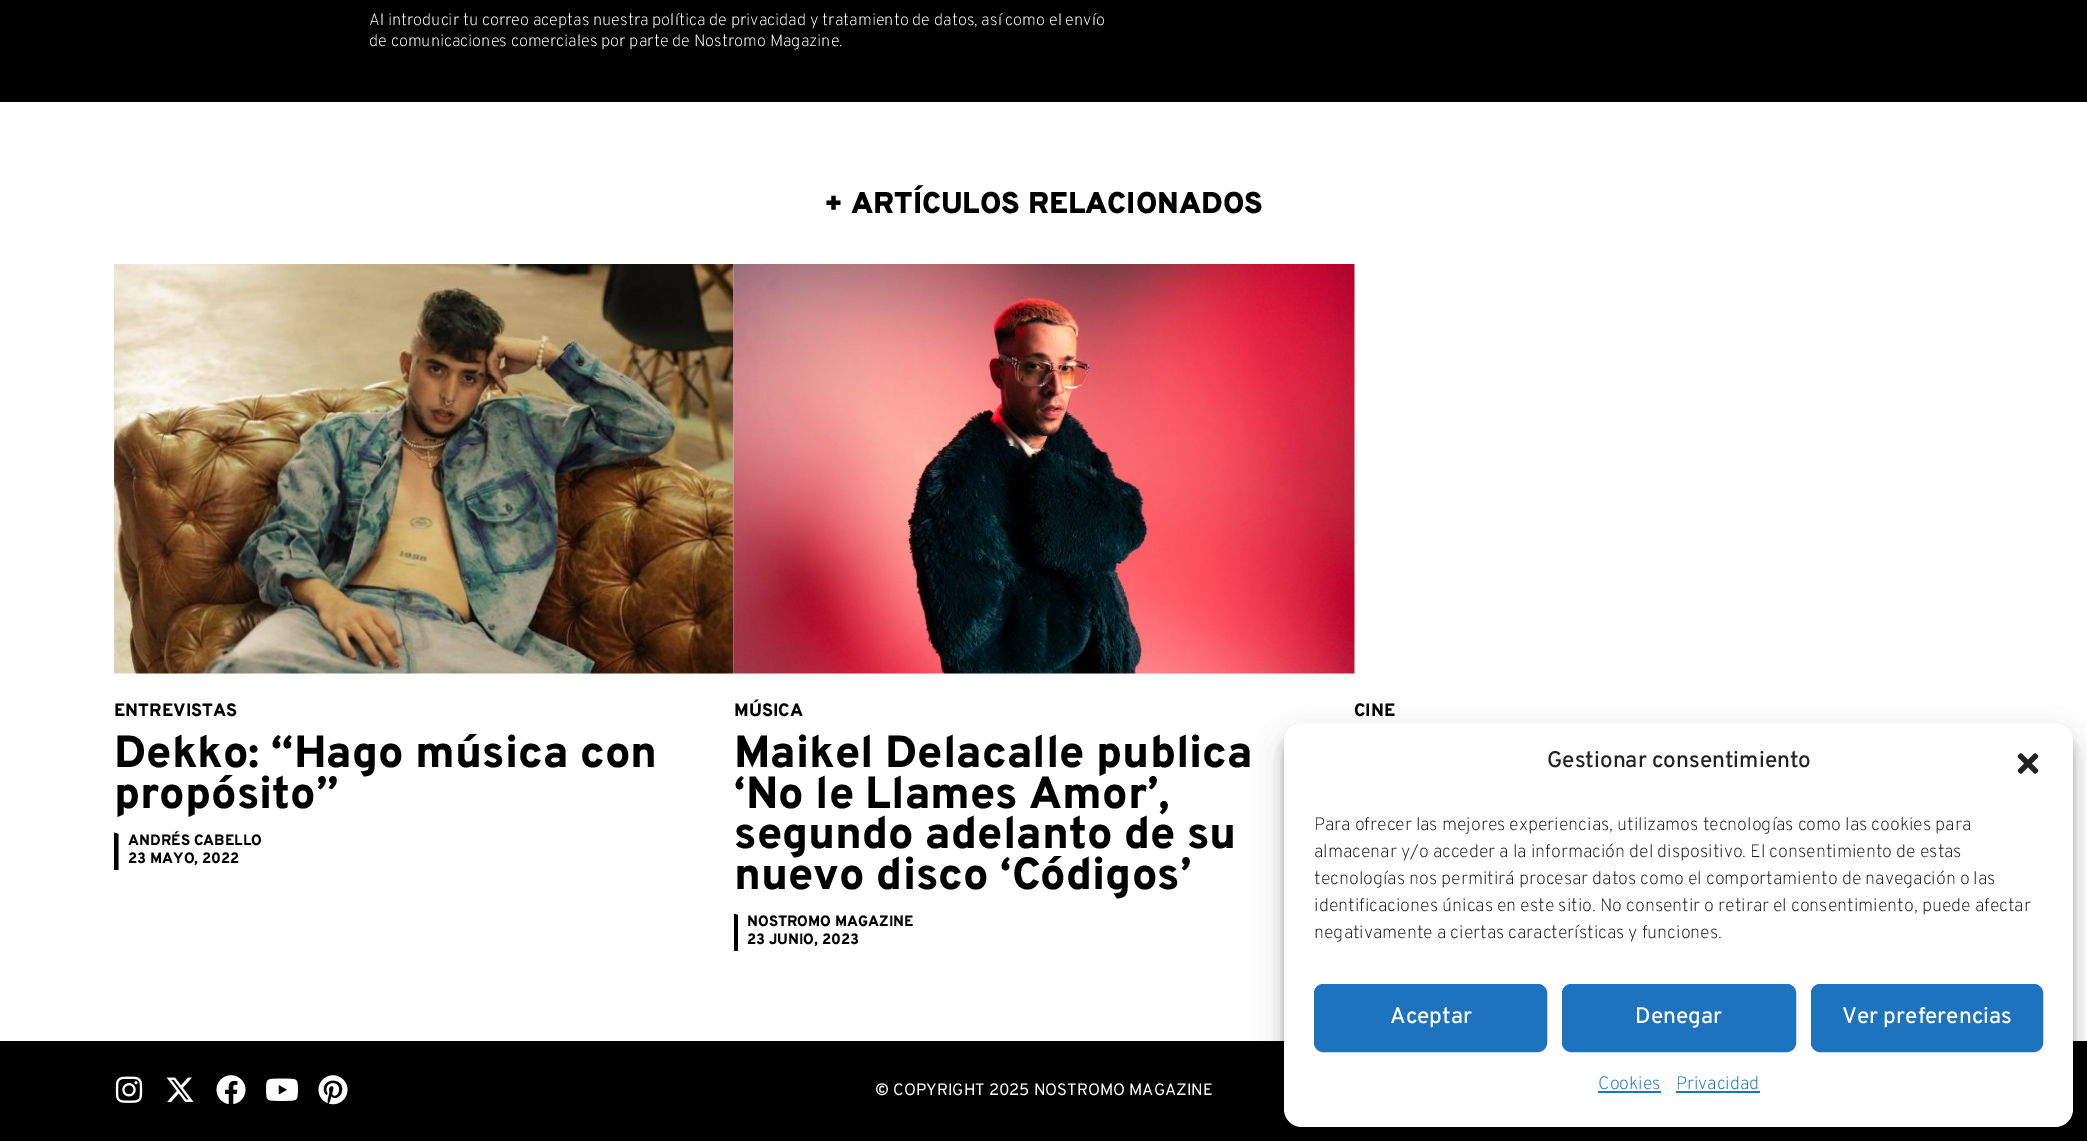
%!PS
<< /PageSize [2087 1141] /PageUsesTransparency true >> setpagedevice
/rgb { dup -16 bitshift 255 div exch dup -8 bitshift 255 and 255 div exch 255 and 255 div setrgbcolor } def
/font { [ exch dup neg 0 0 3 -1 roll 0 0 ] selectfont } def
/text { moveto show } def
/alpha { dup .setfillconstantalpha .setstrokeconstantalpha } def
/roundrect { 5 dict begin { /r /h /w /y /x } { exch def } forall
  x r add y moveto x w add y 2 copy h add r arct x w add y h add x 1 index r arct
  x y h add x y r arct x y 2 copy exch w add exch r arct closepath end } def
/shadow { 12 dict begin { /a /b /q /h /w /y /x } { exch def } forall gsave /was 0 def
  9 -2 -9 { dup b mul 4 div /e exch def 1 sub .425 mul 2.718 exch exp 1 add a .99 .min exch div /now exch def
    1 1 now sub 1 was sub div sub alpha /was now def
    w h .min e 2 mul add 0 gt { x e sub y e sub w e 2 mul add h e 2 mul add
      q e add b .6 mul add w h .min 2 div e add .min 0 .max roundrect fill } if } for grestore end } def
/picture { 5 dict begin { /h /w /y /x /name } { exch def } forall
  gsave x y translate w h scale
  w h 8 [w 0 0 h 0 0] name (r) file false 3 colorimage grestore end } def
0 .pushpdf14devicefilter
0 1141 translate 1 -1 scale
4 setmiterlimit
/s1 { /Overpass-ExtraLight 16.5 font 16#FFFFFF rgb } def
/s2 { /Overpass-Black 30 font 16#000000 rgb } def
/s3 { /Overpass-ExtraBold 18 font 16#000000 rgb } def
/s4 { /Overpass-ExtraBold 45 font 16#000000 rgb } def
/s5 { /Overpass-ExtraBold 15 font 16#000000 rgb } def
/s6 { /Overpass-Bold 16.5 font 16#FFFFFF rgb } def
/s7 { /Overpass-Regular 16.5 font 16#FFFFFF rgb } def
/s8 { /Overpass-Medium 22.5 font 16#222222 rgb } def
/s9 { /Overpass-ExtraLight 18 font 16#222222 rgb } def
/s10 { /Overpass-Medium 22.5 font 16#FFFFFF rgb } def
/s11 { /Overpass-ExtraLight 18 font 16#1E73BE rgb } def
16#FFFFFF rgb
0 0 2087 1141 rectfill
16#000000 rgb
0 0 2087 102 rectfill
s1
(Al introducir tu correo aceptas nuestra política de privacidad y tratamiento de datos, así como el envío) 369 25 text
(de comunicaciones comerciales por parte de Nostromo Magazine.) 369 46 text
s2
(+ ARTÍCULOS RELACIONADOS) 824 213 text
(pic1.raw) 114 264 620 410 picture
s3
(ENTREVISTAS) 114 716 text
s4
(Dekko: “Hago música con) 114 767 text
(propósito”) 114 808 text
114 870 moveto 114 832.5 lineto 118.5 834 lineto 118.5 870 lineto closepath fill
s5
(ANDRÉS CABELLO) 128 845 text
(23 MAYO, 2022) 128 863 text
(pic2.raw) 733 264 622 410 picture
s3
(MÚSICA) 734 716 text
s4
(Maikel Delacalle publica) 734 767 text
(‘No le Llames Amor’,) 734 808 text
(segundo adelanto de su) 734 848 text
(nuevo disco ‘Códigos’) 734 889 text
gsave
734 264 621 687 rectclip
733.5 951 moveto 733.5 913.5 lineto 738 915 lineto 738 951 lineto closepath fill
grestore
s5
(NOSTROMO MAGAZINE) 747 926 text
(23 JUNIO, 2023) 747 944 text
s3
(CINE) 1354 716 text
0 1041 2087 100 rectfill
(pic3.raw) 115 1076 28 27 picture
(pic4.raw) 166 1077 28 25 picture
(pic5.raw) 216 1075 30 30 picture
(pic6.raw) 266 1078 32 23 picture
(pic7.raw) 318 1075 30 30 picture
s6
(©) 875 1095 text
s7
(COPYRIGHT 2025 NOSTROMO MAGAZINE) 893 1095 text
16#000000 rgb
1284 732 789 404 18 4.5 0.23 shadow
1284 738 789 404 18 15 0.19 shadow
16#FFFFFF rgb
1284 723 789 404 18 roundrect fill
s8
(Gestionar consentimiento) 1547 767 text
(pic8.raw) 2017 753 22 21 picture
s9
(Para ofrecer las mejores experiencias, utilizamos tecnologías como las cookies para) 1314 830 text
(almacenar y/o acceder a la información del dispositivo. El consentimiento de estas) 1314 857 text
(tecnologías nos permitirá procesar datos como el comportamiento de navegación o las) 1314 884 text
(identificaciones únicas en este sitio. No consentir o retirar el consentimiento, puede afectar) 1314 911 text
(negativamente a ciertas características y funciones.) 1314 938 text
16#1E73BE rgb
1315 985 231 66 8 roundrect gsave fill grestore
2 setlinewidth
stroke
s10
(Aceptar) 1390 1023 text
16#1E73BE rgb
1563 985 232 66 8 roundrect gsave fill grestore
stroke
s10
(Denegar) 1635 1023 text
16#1E73BE rgb
1812 985 230 66 8 roundrect gsave fill grestore
stroke
s10
(Ver preferencias) 1842 1023 text
s11
(Cookies) 1598 1089 text
1598 1091 63 2 rectfill
(Privacidad) 1676 1089 text
1676 1091 84 2 rectfill
.poppdf14devicefilter showpage
